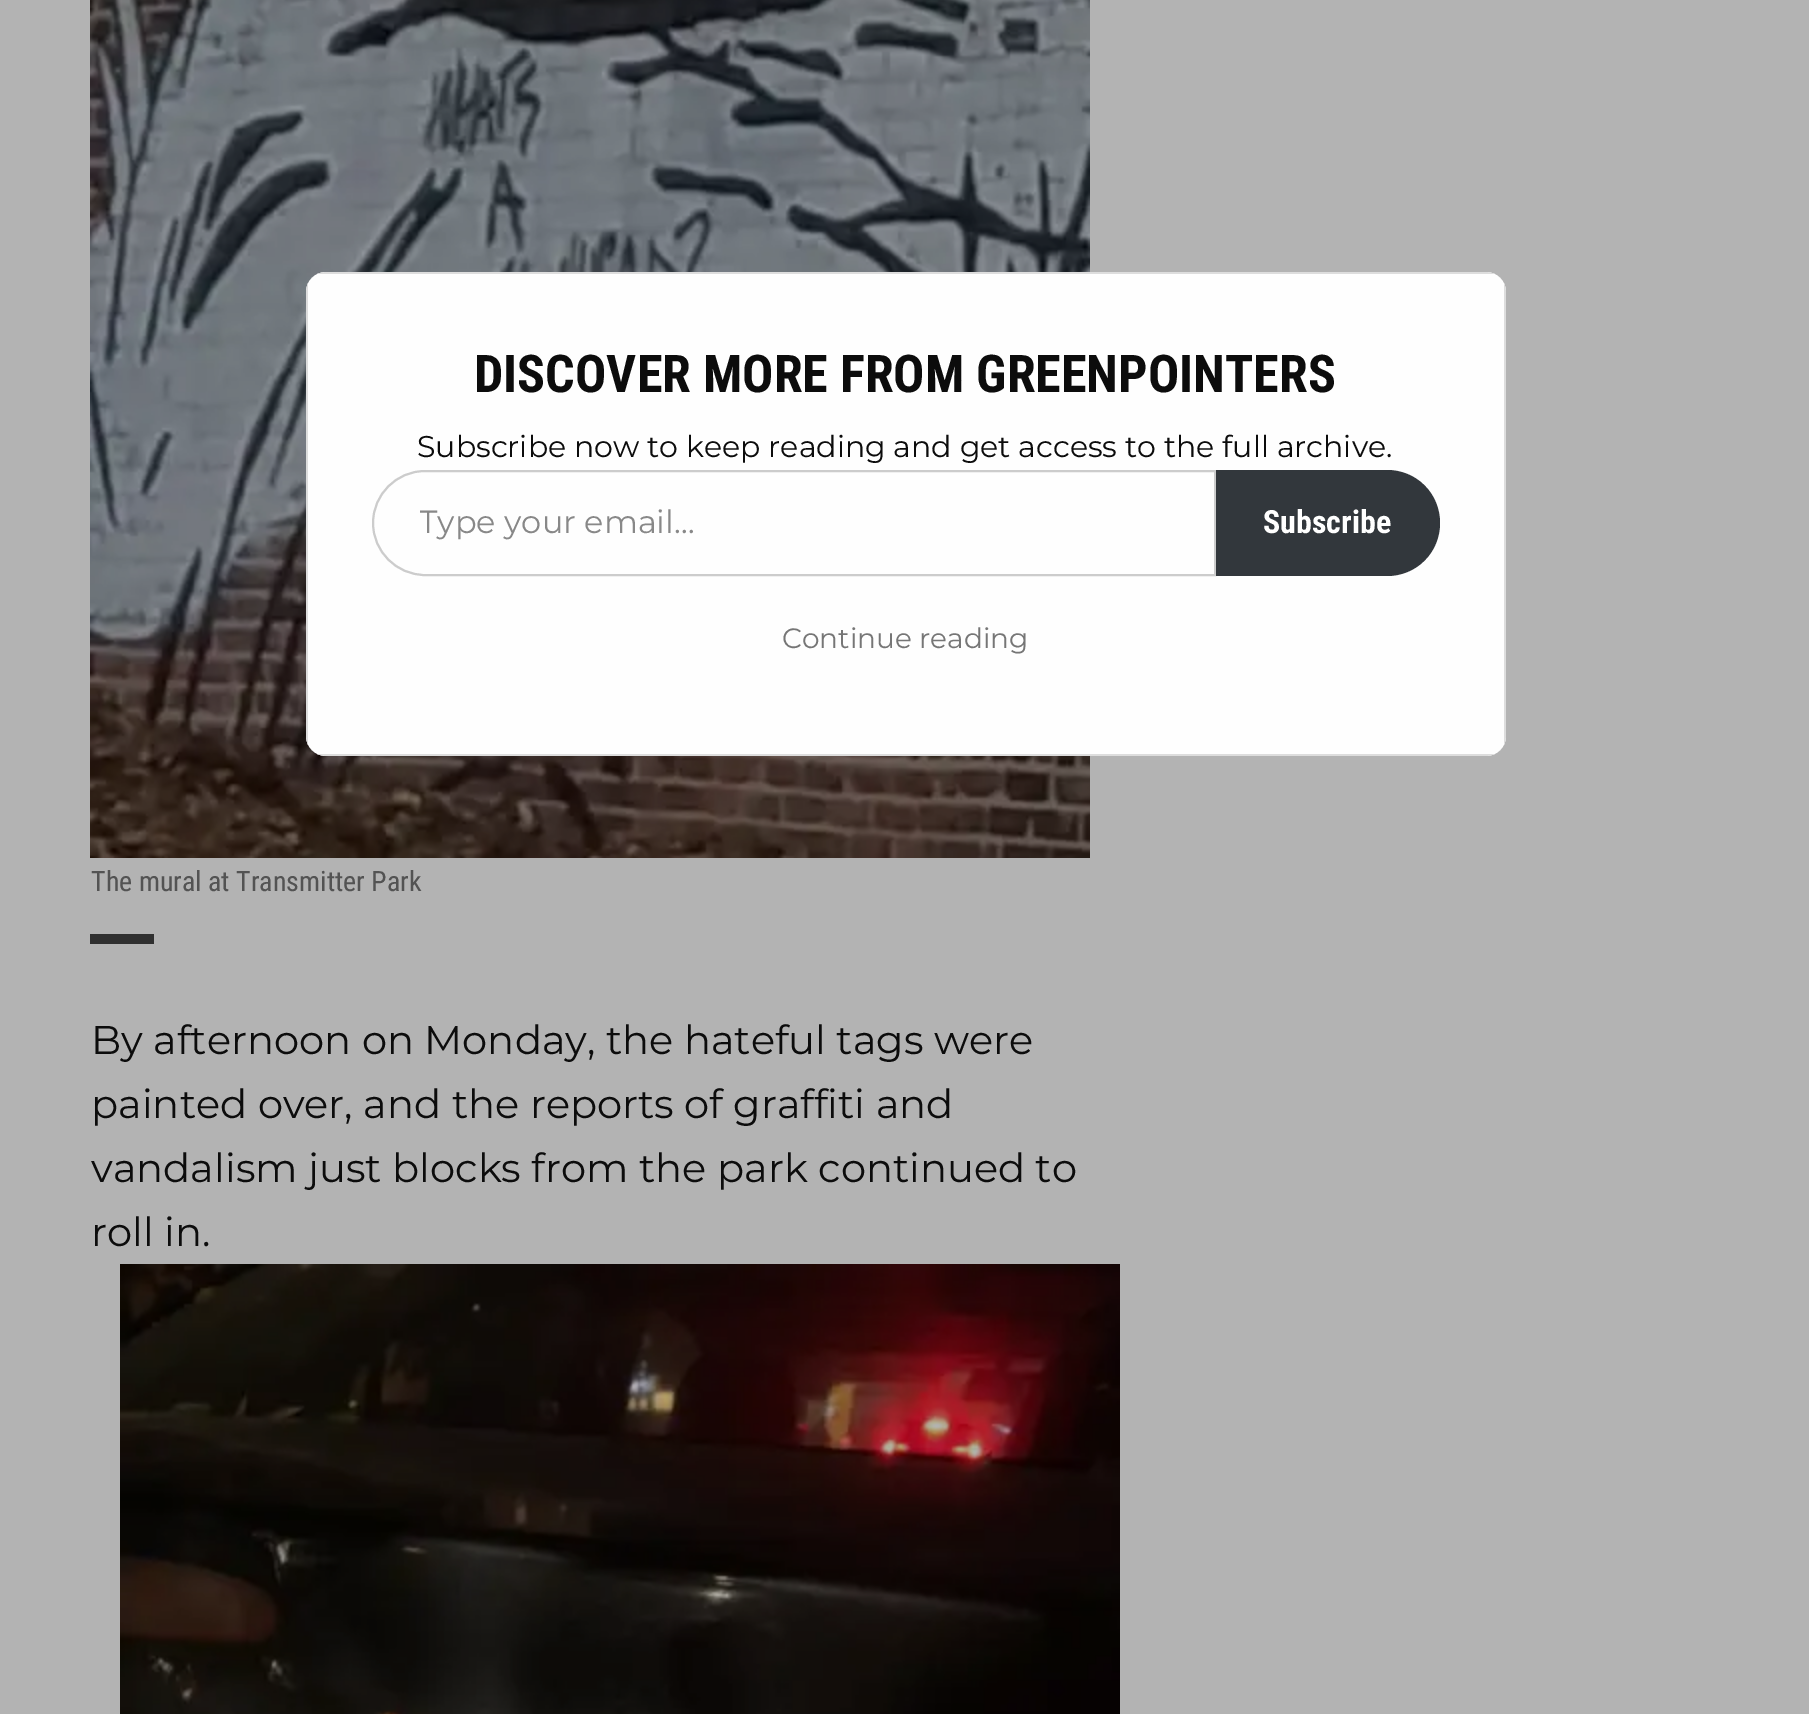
%!PS
<< /PageSize [1809 1714] >> setpagedevice
/rgb { dup -16 bitshift 255 div exch dup -8 bitshift 255 and 255 div exch 255 and 255 div setrgbcolor } def
/font { [ exch dup neg 0 0 3 -1 roll 0 0 ] selectfont } def
/text { moveto show } def
/roundrect { 5 dict begin { /r /h /w /y /x } { exch def } forall
  x r add y moveto x w add y 2 copy h add r arct x w add y h add x 1 index r arct
  x y h add x y r arct x y 2 copy exch w add exch r arct closepath end } def
/picture { 5 dict begin { /h /w /y /x /name } { exch def } forall
  gsave x y translate w h scale
  w h 8 [w 0 0 h 0 0] name (r) file false 3 colorimage grestore end } def
0 1714 translate 1 -1 scale
4 setmiterlimit
/s1 { /RobotoCondensed-Bold 52 font 16#0C0C0C rgb } def
/s2 { /Montserrat-Regular 30 font 16#0C0C0C rgb } def
/s3 { /Montserrat-Regular 32 font 16#888888 rgb } def
/s4 { /RobotoCondensed-Bold 32 font 16#FFFFFF rgb } def
/s5 { /Montserrat-Regular 28 font 16#767676 rgb } def
/s6 { /RobotoCondensed-Regular 28 font 16#535353 rgb } def
/s7 { /Montserrat-Regular 40 font 16#0C0C0C rgb } def
16#B3B3B3 rgb
0 0 1809 1714 rectfill
(pic1.raw) 90 0 1000 858 picture
16#FEFEFE rgb
306 272 1200 484 20 roundrect fill
16#DDDDDD rgb
306 292 moveto 306 736 lineto 306 739 307 742 308 745 curveto 308 283 lineto 307 286 306 289 306 292 curveto closepath 326 272 moveto 323 272 320 273 317 274 curveto 1495 274 lineto 1492 273 1489 272 1486 272 curveto closepath 1506 292 moveto 1506 289 1505 286 1504 283 curveto 1504 745 lineto 1505 742 1506 739 1506 736 curveto closepath 1486 756 moveto 1489 756 1492 755 1495 754 curveto 317 754 lineto 320 755 323 756 326 756 curveto closepath eofill
s1
(DISCOVER MORE FROM GREENPOINTERS) 474 392 text
s2
(Subscribe now to keep reading and get access to the full archive.) 417 457 text
16#CCCCCC rgb
2 setlinewidth
425 471 moveto 1215 471 lineto 1215 575 lineto 425 575 lineto 396.5 575 373 551.5 373 523 curveto 373 494.5 396.5 471 425 471 curveto closepath stroke
gsave
420 502 748 38 rectclip
s3
(Type your email…) 419 533 text
grestore
16#32373C rgb
1216 470 moveto 1387 470 lineto 1416.5 470 1440 493.5 1440 523 curveto 1440 552.5 1416.5 576 1387 576 curveto 1216 576 lineto closepath fill
s4
(Subscribe) 1263 533 text
s5
(Continue reading) 782 648 text
s6
(The mural at Transmitter Park) 91 891 text
16#303030 rgb
90 934 64 10 rectfill
s7
(By afternoon on Monday, the hateful tags were) 91 1054 text
(painted over, and the reports of graffiti and) 91 1118 text
(vandalism just blocks from the park continued to) 91 1182 text
(roll in.) 91 1246 text
(pic2.raw) 120 1264 1000 450 picture
showpage
